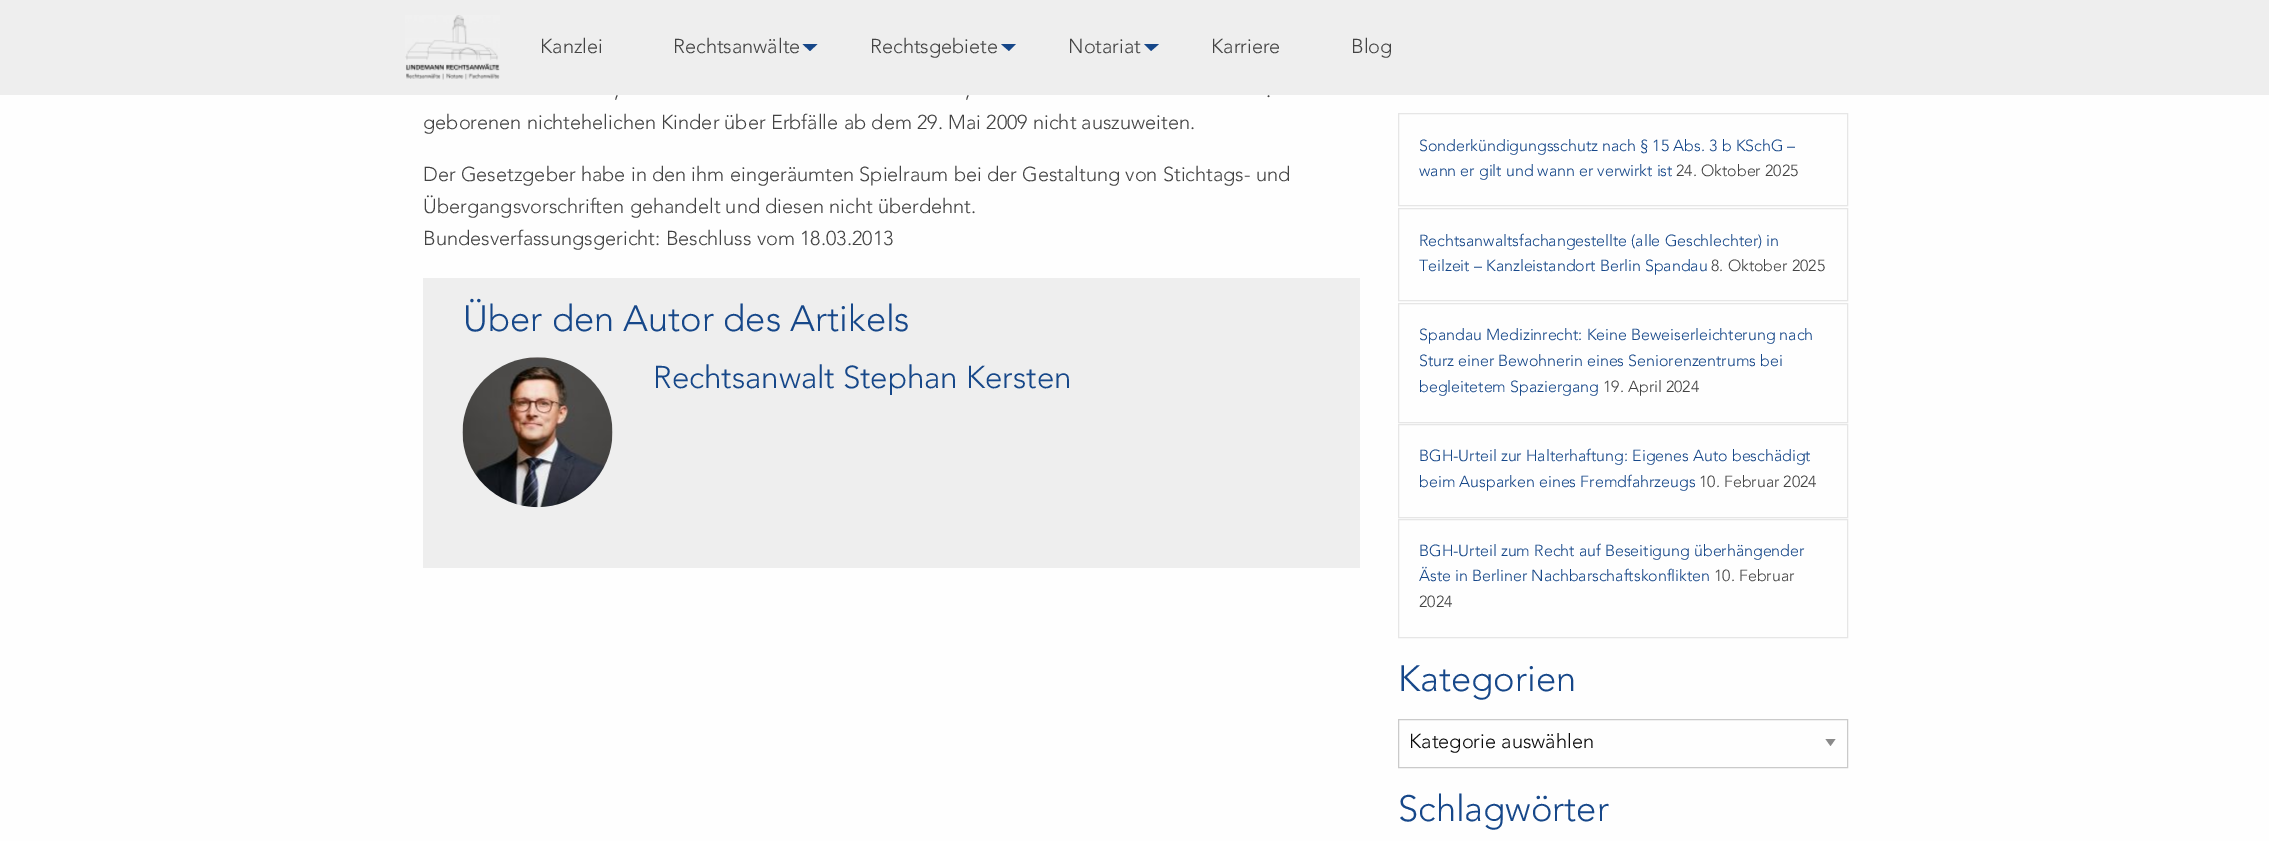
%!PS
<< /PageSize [2269 841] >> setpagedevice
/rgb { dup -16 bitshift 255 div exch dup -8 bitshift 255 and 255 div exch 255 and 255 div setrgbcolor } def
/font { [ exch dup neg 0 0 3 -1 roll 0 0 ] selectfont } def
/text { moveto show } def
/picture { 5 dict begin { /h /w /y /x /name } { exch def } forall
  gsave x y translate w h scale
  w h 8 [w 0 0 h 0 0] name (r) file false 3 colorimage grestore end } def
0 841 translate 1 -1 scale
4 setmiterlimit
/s1 { /Avenir-Light 20 font 16#434343 rgb } def
/s2 { /Avenir-Light 36.25 font 16#164789 rgb } def
/s3 { /Avenir-Light 31.25 font 16#164789 rgb } def
/s4 { /Avenir-Light 16 font 16#164789 rgb } def
/s5 { /Avenir-Light 16 font 16#434343 rgb } def
/s6 { /Avenir-Light 20 font 16#0A0A0A rgb } def
16#FEFEFE rgb
0 0 2269 841 rectfill
16#EEEEEE rgb
0 0 2269 95 rectfill
(pic1.raw) 405 15 95 65 picture
s1
(Kanzlei) 540 53 text
(Rechtsanwälte) 673 53 text
16#164789 rgb
802.5 44 moveto 817.5 44 lineto 810 51 lineto closepath fill
s1
(Rechtsgebiete) 870 53 text
16#164789 rgb
1001 44 moveto 1016 44 lineto 1009 51 lineto closepath fill
s1
(Notariat) 1068 53 text
16#164789 rgb
1144 44 moveto 1159 44 lineto 1151 51 lineto closepath fill
s1
(Karriere) 1211 53 text
(Blog) 1351 53 text
(,) 614 97 text
(,) 965 97 text
(.) 1266 97 text
(geborenen nichtehelichen Kinder über Erbfälle ab dem 29. Mai 2009 nicht auszuweiten.) 423 129 text
(Der Gesetzgeber habe in den ihm eingeräumten Spielraum bei der Gestaltung von Stichtags- und) 423 181 text
(Übergangsvorschriften gehandelt und diesen nicht überdehnt.) 423 213 text
(Bundesverfassungsgericht: Beschluss vom 18.03.2013) 423 245 text
16#EEEEEE rgb
423 278 937 290 rectfill
s2
(Über den Autor des Artikels) 463 331 text
(pic2.raw) 462 357 151 151 picture
s3
(Rechtsanwalt Stephan Kersten) 653 388 text
16#E6E6E6 rgb
1398.5 113.5 449 92 rectstroke
s4
(Sonderkündigungsschutz nach § 15 Abs. 3 b KSchG –) 1419 151 text
(wann er gilt und wann er verwirkt ist) 1419 176 text
s5
(24. Oktober 2025) 1676 176 text
16#E6E6E6 rgb
1398.5 208.5 449 92 rectstroke
s4
(Rechtsanwaltsfachangestellte \(alle Geschlechter\) in) 1419 246 text
(Teilzeit – Kanzleistandort Berlin Spandau) 1419 271 text
s5
(8. Oktober 2025) 1711 271 text
16#E6E6E6 rgb
1398.5 303.5 449 119 rectstroke
s4
(Spandau Medizinrecht: Keine Beweiserleichterung nach) 1419 340 text
(Sturz einer Bewohnerin eines Seniorenzentrums bei) 1419 366 text
(begleitetem Spaziergang) 1419 392 text
s5
(19. April 2024) 1603 392 text
16#E6E6E6 rgb
1398.5 424.5 449 93 rectstroke
s4
(BGH-Urteil zur Halterhaftung: Eigenes Auto beschädigt) 1419 461 text
(beim Ausparken eines Fremdfahrzeugs) 1419 487 text
s5
(10. Februar 2024) 1699 487 text
16#E6E6E6 rgb
1398.5 519.5 449 118 rectstroke
s4
(BGH-Urteil zum Recht auf Beseitigung überhängender) 1419 556 text
(Äste in Berliner Nachbarschaftskonflikten) 1419 581 text
s5
(10. Februar) 1714 581 text
(2024) 1419 607 text
s2
(Kategorien) 1398 691 text
16#8A8A8A rgb
1825.5 739 moveto 1835.5 739 lineto 1830.5 746 lineto closepath fill
16#CACACA rgb
1398.5 719.5 449 48 rectstroke
gsave
1409 733 407 20 rectclip
s6
(Kategorie auswählen) 1409 748 text
grestore
s2
(Schlagwörter) 1398 821 text
showpage
